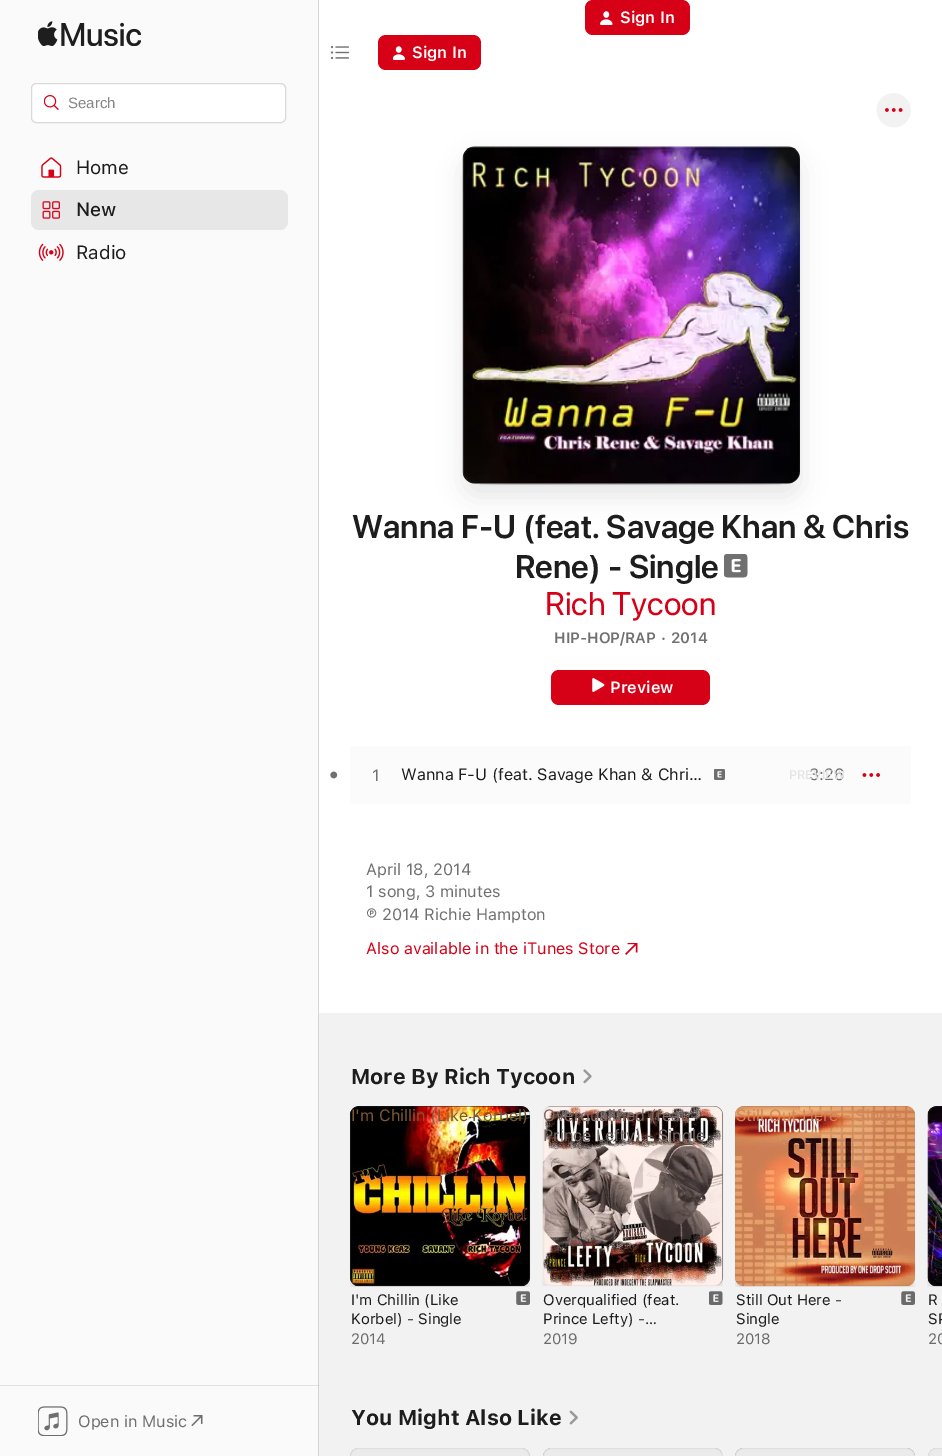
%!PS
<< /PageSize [942 1456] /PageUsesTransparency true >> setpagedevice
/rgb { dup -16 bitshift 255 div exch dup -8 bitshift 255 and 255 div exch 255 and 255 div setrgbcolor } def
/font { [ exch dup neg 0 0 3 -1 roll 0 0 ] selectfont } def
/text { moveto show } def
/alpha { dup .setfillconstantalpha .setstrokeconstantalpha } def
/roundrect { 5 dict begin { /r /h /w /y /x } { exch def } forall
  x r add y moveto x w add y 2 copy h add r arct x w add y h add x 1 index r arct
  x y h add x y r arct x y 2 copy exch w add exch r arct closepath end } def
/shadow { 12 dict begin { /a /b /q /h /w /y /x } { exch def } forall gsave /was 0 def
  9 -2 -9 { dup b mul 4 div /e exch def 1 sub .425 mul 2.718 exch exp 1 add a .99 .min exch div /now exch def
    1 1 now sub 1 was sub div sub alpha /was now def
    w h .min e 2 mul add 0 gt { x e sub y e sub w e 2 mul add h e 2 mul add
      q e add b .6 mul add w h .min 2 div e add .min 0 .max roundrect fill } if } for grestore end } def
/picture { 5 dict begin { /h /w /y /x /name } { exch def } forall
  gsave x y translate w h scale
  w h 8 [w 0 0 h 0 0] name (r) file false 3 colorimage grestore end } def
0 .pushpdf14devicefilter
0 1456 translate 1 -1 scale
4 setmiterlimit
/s1 { /SF-SemiBold 16.25 font 16#FFFFFF rgb } def
/s2 { /LiberationSans-Regular 15 font 16#858585 rgb } def
/s3 { /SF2-Regular 19 font 16#1D1D1D rgb } def
/s4 { /SF-Medium 19 font 16#1D1D1D rgb } def
/s5 { /SF2-Regular 16.25 font 16#707070 rgb } def
/s6 { /SF2-SemiBold 32.5 font 16#1D1D1D rgb } def
/s7 { /SF-Regular 32.5 font 16#D60017 rgb } def
/s8 { /SF-SemiBold 15 font 16#707070 rgb } def
/s9 { /SF2-Regular 16.25 font 16#1D1D1D rgb } def
/s10 { /SF-Medium 12.5 font 16#E4E4E4 rgb } def
/s11 { /SF2-Regular 16.25 font 16#D60017 rgb } def
/s12 { /SF-Bold 21.25 font 16#1D1D1D rgb } def
/s13 { /SF2-Regular 16.25 font 16#7F5633 rgb } def
/s14 { /SF2-Regular 15 font 16#1D1D1D rgb } def
/s15 { /SF2-Regular 15 font 16#6A6A6A rgb } def
/s16 { /SF2-Regular 16.25 font 16#7B6762 rgb } def
/s17 { /SF2-Regular 16.25 font 16#706664 rgb } def
/s18 { /SF2-Regular 16.25 font 16#D1845A rgb } def
/s19 { /SF2-Regular 16.25 font 16#8535B7 rgb } def
16#FFFFFF rgb
0 0 942 1456 rectfill
16#D60017 rgb
585 0 105 35 8 roundrect fill
(pic1.raw) 600 11 13 14 picture
s1
(Sign In) 620 23 text
(pic2.raw) 330 46 20 13 picture
16#D60017 rgb
378 35 103 35 8 roundrect fill
(pic3.raw) 393 46 12 14 picture
s1
(Sign In) 412 58 text
16#FAFAFA rgb
0 0 318 1456 rectfill
16#E1E1E1 rgb
0 1385 319 1 rectfill
16#D5D5D5 rgb
318 0 1 1456 rectfill
16#C0C0C0 rgb
318 1385 1 1 rectfill
(pic4.raw) 38 21 103 25 picture
16#FFFFFF rgb
31.5 83.5 254 39 4.5 roundrect gsave fill grestore
16#D9D9D9 rgb
stroke
(pic5.raw) 44 95 15 15 picture
s2
(Search) 68 108 text
(pic6.raw) 41 157 21 21 picture
s3
(Home) 76 174 text
16#E7E7E8 rgb
31 190 257 40 8 roundrect fill
(pic7.raw) 42 201 18 18 picture
s4
(New) 76 216 text
(pic8.raw) 38 243 26 18 picture
s3
(Radio) 76 259 text
(pic9.raw) 38 1406 30 30 picture
s5
(Open in Music) 78 1427 text
(pic10.raw) 191 1415 12 11 picture
(pic11.raw) 876 93 35 35 picture
16#000000 rgb
463 159 337 337 13 12.5 0.1 shadow
(pic13.raw) 480 483 301 2 picture
0.04 alpha
16#808080 rgb
483.5 186.5 296 297 rectstroke
1 alpha
(pic12.raw) 462 146 338 338 picture
0.1 alpha
463.5 146.5 336 337 12.5 roundrect stroke
1 alpha
s6
(Wanna F-U \(feat. Savage Khan & Chris) 352 538 text
(Rene\) - Single) 515 578 text
(pic14.raw) 724 554 24 24 picture
s7
(Rich Tycoon) 545 615 text
s8
(HIP-HOP/RAP · 2014) 554 643 text
16#D60017 rgb
551 670 159 35 8 roundrect fill
(pic15.raw) 592 678 13 14 picture
s1
(Preview) 610 693 text
16#FBFBFB rgb
350 746 561 58 rectfill
(pic16.raw) 330 771 8 8 picture
s5
(1) 372 781 text
s9
(Wanna F-U \(feat. Savage Khan & Chri…) 401 780 text
(pic17.raw) 714 769 11 11 picture
s5
(3:26) 809 780 text
s10
(PREVIEW) 789 779 text
(pic18.raw) 862 773 18 4 picture
s5
(April 18, 2014) 366 875 text
(1 song, 3 minutes) 366 897 text
(℗ 2014 Richie Hampton) 366 920 text
s11
(Also available in the iTunes Store) 366 954 text
(pic19.raw) 625 943 13 12 picture
16#F2F2F2 rgb
319 1013 623 443 rectfill
s12
(More By Rich Tycoon) 351 1084 text
(pic20.raw) 583 1069 9 15 picture
16#000000 rgb
350 1106 180 180 9 roundrect fill
(pic21.raw) 350 1106 180 181 picture
0.1 alpha
16#808080 rgb
350.5 1106.5 179 179 8.5 roundrect stroke
1 alpha
s13
(I'm Chillin \(Like Korbel\)) 351 1121 text
s14
(I'm Chillin \(Like) 351 1305 text
(Korbel\) - Single) 351 1324 text
(pic22.raw) 516 1291 14 14 picture
s15
(2014) 351 1344 text
16#6F605C rgb
543 1106 180 180 9 roundrect fill
(pic23.raw) 542 1106 181 180 picture
0.1 alpha
16#808080 rgb
543.5 1106.5 179 179 8.5 roundrect stroke
1 alpha
s16
(Overqualified \(feat.) 543 1121 text
s17
(Prince Lefty\) - Single) 543 1141 text
s14
(Overqualified \(feat.) 543 1305 text
(Prince Lefty\) -…) 543 1324 text
(pic24.raw) 709 1291 14 14 picture
s15
(2019) 543 1344 text
16#D07B4F rgb
735 1106 180 180 9 roundrect fill
(pic25.raw) 735 1106 180 181 picture
0.1 alpha
16#808080 rgb
735.5 1106.5 179 179 8.5 roundrect stroke
1 alpha
s18
(Still Out Here - Single) 736 1121 text
s14
(Still Out Here -) 736 1305 text
(Single) 736 1324 text
(pic22.raw) 901 1291 14 14 picture
s15
(2018) 736 1344 text
16#080007 rgb
937 1106 moveto 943 1106 lineto 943 1286 lineto 937 1286 lineto 932 1286 928 1282 928 1277 curveto 928 1115 lineto 928 1110 932 1106 937 1106 curveto closepath fill
(pic26.raw) 927 1106 15 181 picture
0.1 alpha
16#808080 rgb
928.5 1106.5 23 179 8.5 roundrect stroke
1 alpha
s19
(S) 928 1141 text
s14
(R) 928 1305 text
(SP) 928 1324 text
s15
(20) 928 1344 text
s12
(You Might Also Like) 351 1425 text
(pic27.raw) 569 1410 9 15 picture
(pic28.raw) 350 1448 180 8 picture
0.1 alpha
16#808080 rgb
350.5 1448.5 179 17 8.5 roundrect stroke
gsave
543 1448 180 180 9 roundrect clip newpath
1 alpha
16#EBEBEB rgb
543 1448 180 8 rectfill
grestore
1 alpha
(pic29.raw) 543 1448 179 8 picture
0.1 alpha
543.5 1448.5 179 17 8.5 roundrect stroke
1 alpha
(pic30.raw) 735 1448 180 8 picture
0.1 alpha
735.5 1448.5 179 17 8.5 roundrect stroke
gsave
928 1448 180 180 9 roundrect clip newpath
1 alpha
16#EBEBEB rgb
928 1448 14 8 rectfill
grestore
1 alpha
(pic31.raw) 928 1448 9 8 picture
0.1 alpha
928.5 1448.5 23 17 8.5 roundrect stroke
.poppdf14devicefilter showpage
